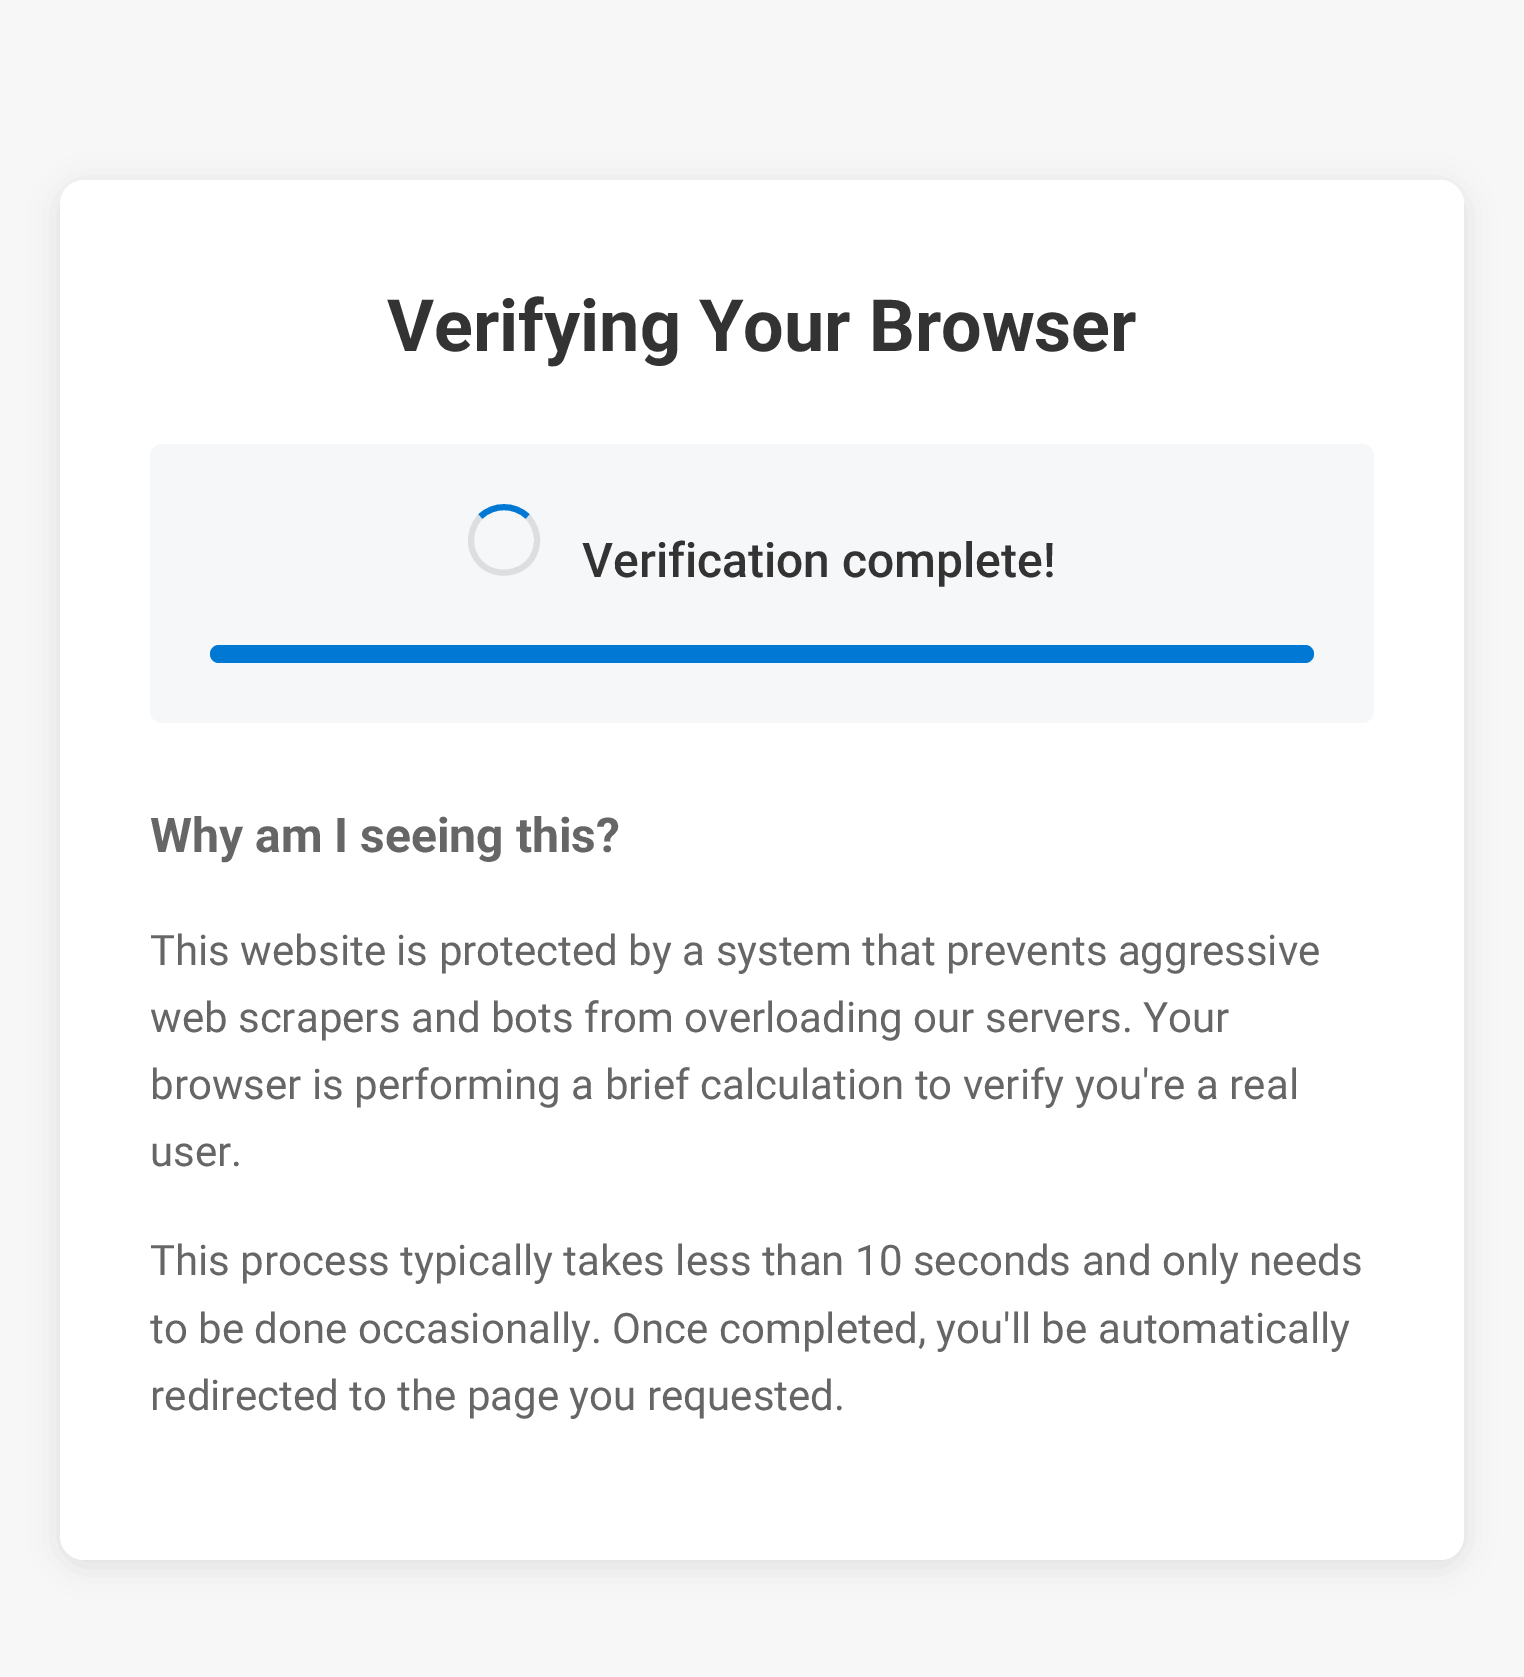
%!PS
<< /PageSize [1524 1677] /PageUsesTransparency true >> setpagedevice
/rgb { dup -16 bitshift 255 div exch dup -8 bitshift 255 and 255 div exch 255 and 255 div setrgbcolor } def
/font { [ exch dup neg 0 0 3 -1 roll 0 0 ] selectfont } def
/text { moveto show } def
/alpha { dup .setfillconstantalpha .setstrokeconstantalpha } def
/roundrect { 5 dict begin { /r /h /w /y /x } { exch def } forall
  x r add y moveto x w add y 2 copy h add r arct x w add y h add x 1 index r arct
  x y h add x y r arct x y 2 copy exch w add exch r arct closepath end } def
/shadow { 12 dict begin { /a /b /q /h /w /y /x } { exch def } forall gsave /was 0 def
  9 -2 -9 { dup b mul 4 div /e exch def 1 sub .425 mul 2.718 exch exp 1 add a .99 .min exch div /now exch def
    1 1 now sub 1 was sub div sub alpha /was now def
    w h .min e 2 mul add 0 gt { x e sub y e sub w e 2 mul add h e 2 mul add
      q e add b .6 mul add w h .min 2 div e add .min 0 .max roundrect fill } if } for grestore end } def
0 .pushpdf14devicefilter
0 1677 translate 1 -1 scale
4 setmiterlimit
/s1 { /Roboto-Bold 72 font 16#333333 rgb } def
/s2 { /Roboto-Medium 48 font 16#333333 rgb } def
/s3 { /Roboto-Bold 48 font 16#666666 rgb } def
/s4 { /Roboto-Regular 42 font 16#666666 rgb } def
16#F7F7F7 rgb
0 0 1524 1677 rectfill
16#000000 rgb
60 186 1404 1380 24 15 0.1 shadow
16#FFFFFF rgb
60 180 1404 1380 24 roundrect fill
s1
(Verifying Your Browser) 387 351 text
16#F5F7F9 rgb
150 444 1224 279 12 roundrect fill
16#0078D4 rgb
6 setlinewidth
480.5 516.5 moveto 493.5 504 514.5 504 527.5 516.5 curveto stroke
0.1 alpha
16#000000 rgb
527.5 516.5 moveto 533.5 523 537 531.5 537 540 curveto 537 579.5 479.5 585 471.5 546.5 curveto 469.5 535.5 473 524.5 480.5 516.5 curveto stroke
1 alpha
s2
(Verification complete!) 582 577 text
16#0078D4 rgb
210 645 1104 18 9 roundrect fill
s3
(Why am I seeing this?) 150 852 text
s4
(This website is protected by a system that prevents aggressive) 150 965 text
(web scrapers and bots from overloading our servers. Your) 150 1032 text
(browser is performing a brief calculation to verify you're a real) 150 1099 text
(user.) 150 1166 text
(This process typically takes less than 10 seconds and only needs) 150 1275 text
(to be done occasionally. Once completed, you'll be automatically) 150 1343 text
(redirected to the page you requested.) 150 1410 text
.poppdf14devicefilter showpage
